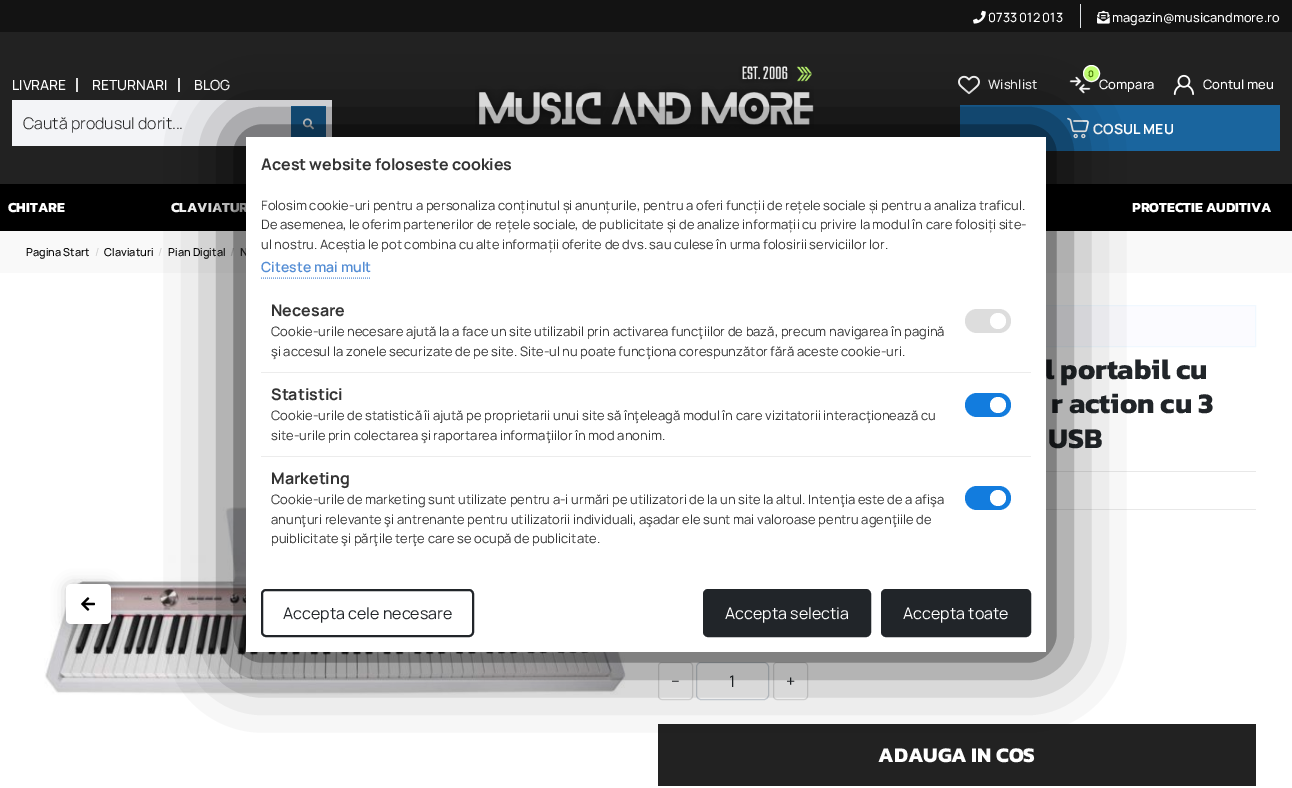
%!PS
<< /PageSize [1292 788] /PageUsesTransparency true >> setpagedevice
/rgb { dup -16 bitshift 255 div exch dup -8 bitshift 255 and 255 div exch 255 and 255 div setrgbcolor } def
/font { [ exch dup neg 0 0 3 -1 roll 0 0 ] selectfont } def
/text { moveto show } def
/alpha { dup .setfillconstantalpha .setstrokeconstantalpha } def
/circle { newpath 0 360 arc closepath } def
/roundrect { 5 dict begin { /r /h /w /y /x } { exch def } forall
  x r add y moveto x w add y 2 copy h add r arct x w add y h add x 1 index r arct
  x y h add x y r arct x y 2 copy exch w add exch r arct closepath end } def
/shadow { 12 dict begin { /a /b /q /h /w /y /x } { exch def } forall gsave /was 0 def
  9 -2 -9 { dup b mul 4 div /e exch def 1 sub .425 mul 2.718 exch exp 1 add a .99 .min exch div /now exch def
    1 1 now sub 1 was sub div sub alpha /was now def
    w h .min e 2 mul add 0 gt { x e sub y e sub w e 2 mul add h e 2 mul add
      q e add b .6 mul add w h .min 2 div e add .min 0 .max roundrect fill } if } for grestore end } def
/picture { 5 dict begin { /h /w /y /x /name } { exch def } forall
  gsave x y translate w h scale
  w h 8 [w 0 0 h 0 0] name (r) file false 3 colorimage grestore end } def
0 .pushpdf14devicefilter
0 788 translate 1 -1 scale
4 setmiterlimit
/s1 { /Manrope-Medium 12.75 font 16#FFFFFF rgb } def
/s2 { /Manrope-Medium 14 font 16#FFFFFF rgb } def
/s3 { /Manrope-Light 16 font 16#222222 rgb } def
/s4 { /Manrope-Medium 13 font 16#FFFFFF rgb } def
/s5 { /Manrope-Bold 9 font 16#437700 rgb } def
/s6 { /Manrope-Bold 14 font 16#FFFFFF rgb } def
/s7 { /Kanit-Bold 14 font 16#FFFFFF rgb } def
/s8 { /Manrope-Medium 11 font 16#000000 rgb } def
/s9 { /Manrope-Regular 11 font 16#CCCCCC rgb } def
/s10 { /Manrope-Bold 11 font 16#CCCCCC rgb } def
/s11 { /Manrope-Bold 11 font 16#333333 rgb } def
/s12 { /Kanit-Bold 28.75 font 16#212529 rgb } def
/s13 { /Manrope-Medium 16 font 16#212529 rgb } def
/s14 { /Manrope-Regular 16 font 16#212529 rgb } def
/s15 { /Kanit-Bold 21 font 16#FFFFFF rgb } def
/s16 { /Manrope-Bold 16 font 16#333333 rgb } def
/s17 { /Manrope-Regular 13 font 16#333333 rgb } def
/s18 { /Manrope-SemiBold 14 font 16#548DD4 rgb } def
/s19 { /Manrope-Regular 16 font 16#FFFFFF rgb } def
16#FFFFFF rgb
0 0 1292 788 rectfill
16#131313 rgb
0 0 1292 32 rectfill
16#DEE2E6 rgb
1080 4 1 24 rectfill
(pic1.raw) 973 10 13 14 picture
s1
(0733 012 013) 988 22 text
(pic2.raw) 1097 10 13 14 picture
(magazin@musicandmore.ro) 1112 22 text
16#222222 rgb
0 32 1292 152 rectfill
16#DFDFDF rgb
76 78 2 14 rectfill
s2
(LIVRARE) 12 90 text
16#DFDFDF rgb
178 78 2 14 rectfill
s2
(RETURNARI) 92 90 text
(BLOG) 194 90 text
16#F3F4F7 rgb
12 100 320 46 rectfill
s3
(Caută produsul dorit...) 23 129 text
16#1A659E rgb
291 106 35 31 rectfill
(pic3.raw) 303 118 11 12 picture
(pic4.raw) 475 66 339 63 picture
(pic5.raw) 958 75 22 20 picture
s4
(Wishlist) 988 89 text
(pic6.raw) 1069 76 22 18 picture
(Compara) 1099 89 text
16#C1FF72 rgb
1091.5 73.5 8 circle gsave fill grestore
16#FFFFFF rgb
stroke
s5
(0) 1088 77 text
(pic7.raw) 1173 74 21 21 picture
s4
(Contul meu) 1203 89 text
16#1A659E rgb
960 105 320 46 rectfill
(pic8.raw) 1067 117 22 22 picture
s6
(COSUL MEU) 1093 134 text
16#000000 rgb
0 184 1292 47 rectfill
s7
(CHITARE) 8 212 text
(CLAVIATUR) 171 212 text
(PROTECTIE AUDITIVA) 1132 212 text
16#F9F9F9 rgb
0 231 1292 42 rectfill
s8
(Pagina Start) 26 256 text
s9
(/) 95 256 text
s8
(Claviaturi) 104 256 text
s9
(/) 158 256 text
s8
(Pian Digital) 168 256 text
s10
(/) 230 256 text
s11
(N) 240 256 text
(pic9.raw) 44 507 582 188 picture
16#000000 rgb
66 584 45 40 5 7 0.2 shadow
16#FFFFFF rgb
66 584 45 40 5 roundrect fill
(pic10.raw) 81 597 14 14 picture
16#FBFBFF rgb
1046 306 209 40 rectfill
16#F0F8FF rgb
658.5 305.5 597 41 rectstroke
s12
(l portabil cu) 1045 379 text
(r action cu 3) 1051 413 text
(USB) 1048 448 text
16#E8E8E8 rgb
1046 471 210 1 rectfill
1046 509 210 1 rectfill
16#DDDDDD rgb
658.5 662.5 34 37 3.5 roundrect stroke
s13
(−) 671 687 text
16#CED4DA rgb
696.5 662.5 72 37 4.5 roundrect stroke
s14
(1) 729 687 text
16#DDDDDD rgb
773.5 662.5 34 37 3.5 roundrect stroke
s13
(+) 786 687 text
16#222222 rgb
658 724 598 62 rectfill
s15
(ADAUGA IN COS) 878 762 text
16#000000 rgb
242 133 806 521 0 35 1 shadow
16#FFFFFF rgb
246 137 800 515 rectfill
s16
(Acest website foloseste cookies) 261 170 text
s17
(Folosim cookie-uri pentru a personaliza conținutul și anunțurile, pentru a oferi funcții de rețele sociale și pentru a analiza traficul.) 261 210 text
(De asemenea, le oferim partenerilor de rețele sociale, de publicitate și de analize informații cu privire la modul în care folosiți site-) 261 229 text
(ul nostru. Aceștia le pot combina cu alte informații oferite de dvs. sau culese în urma folosirii serviciilor lor.) 261 249 text
16#548DD4 rgb
[1 1] 0 setdash
261 278 moveto 371 278 lineto stroke
s18
(Citeste mai mult) 261 272 text
16#ECECEC rgb
261 372 770 1 rectfill
s16
(Necesare) 271 316 text
s17
(Cookie-urile necesare ajută la a face un site utilizabil prin activarea funcţiilor de bază, precum navigarea în pagină) 271 336 text
(şi accesul la zonele securizate de pe site. Site-ul nu poate funcţiona corespunzător fără aceste cookie-uri.) 271 356 text
16#DDDDDD rgb
965 309 46 24 12 roundrect fill
16#FFFFFF rgb
998 321 8 circle fill
16#ECECEC rgb
261 456 770 1 rectfill
s16
(Statistici) 271 400 text
s17
(Cookie-urile de statistică îi ajută pe proprietarii unui site să înţeleagă modul în care vizitatorii interacţionează cu) 271 420 text
(site-urile prin colectarea şi raportarea informaţiilor în mod anonim.) 271 440 text
16#127CDE rgb
965 393 46 24 12 roundrect fill
16#FFFFFF rgb
998 405 8 circle fill
s16
(Marketing) 271 484 text
s17
(Cookie-urile de marketing sunt utilizate pentru a-i urmări pe utilizatori de la un site la altul. Intenţia este de a afişa) 271 504 text
(anunţuri relevante şi antrenante pentru utilizatorii individuali, aşadar ele sunt mai valoroase pentru agenţiile de) 271 524 text
(puiblicitate şi părţile terţe care se ocupă de publicitate.) 271 543 text
16#127CDE rgb
965 486 46 24 12 roundrect fill
16#FFFFFF rgb
998 498 8 circle fill
16#212529 rgb
2 setlinewidth
[] 0 setdash
262 590 211 46 4 roundrect stroke
s14
(Accepta cele necesare) 283 619 text
704 590 166 46 4 roundrect gsave fill grestore
stroke
s19
(Accepta selectia) 725 619 text
16#212529 rgb
882 590 148 46 4 roundrect gsave fill grestore
stroke
s19
(Accepta toate) 903 619 text
.poppdf14devicefilter showpage
